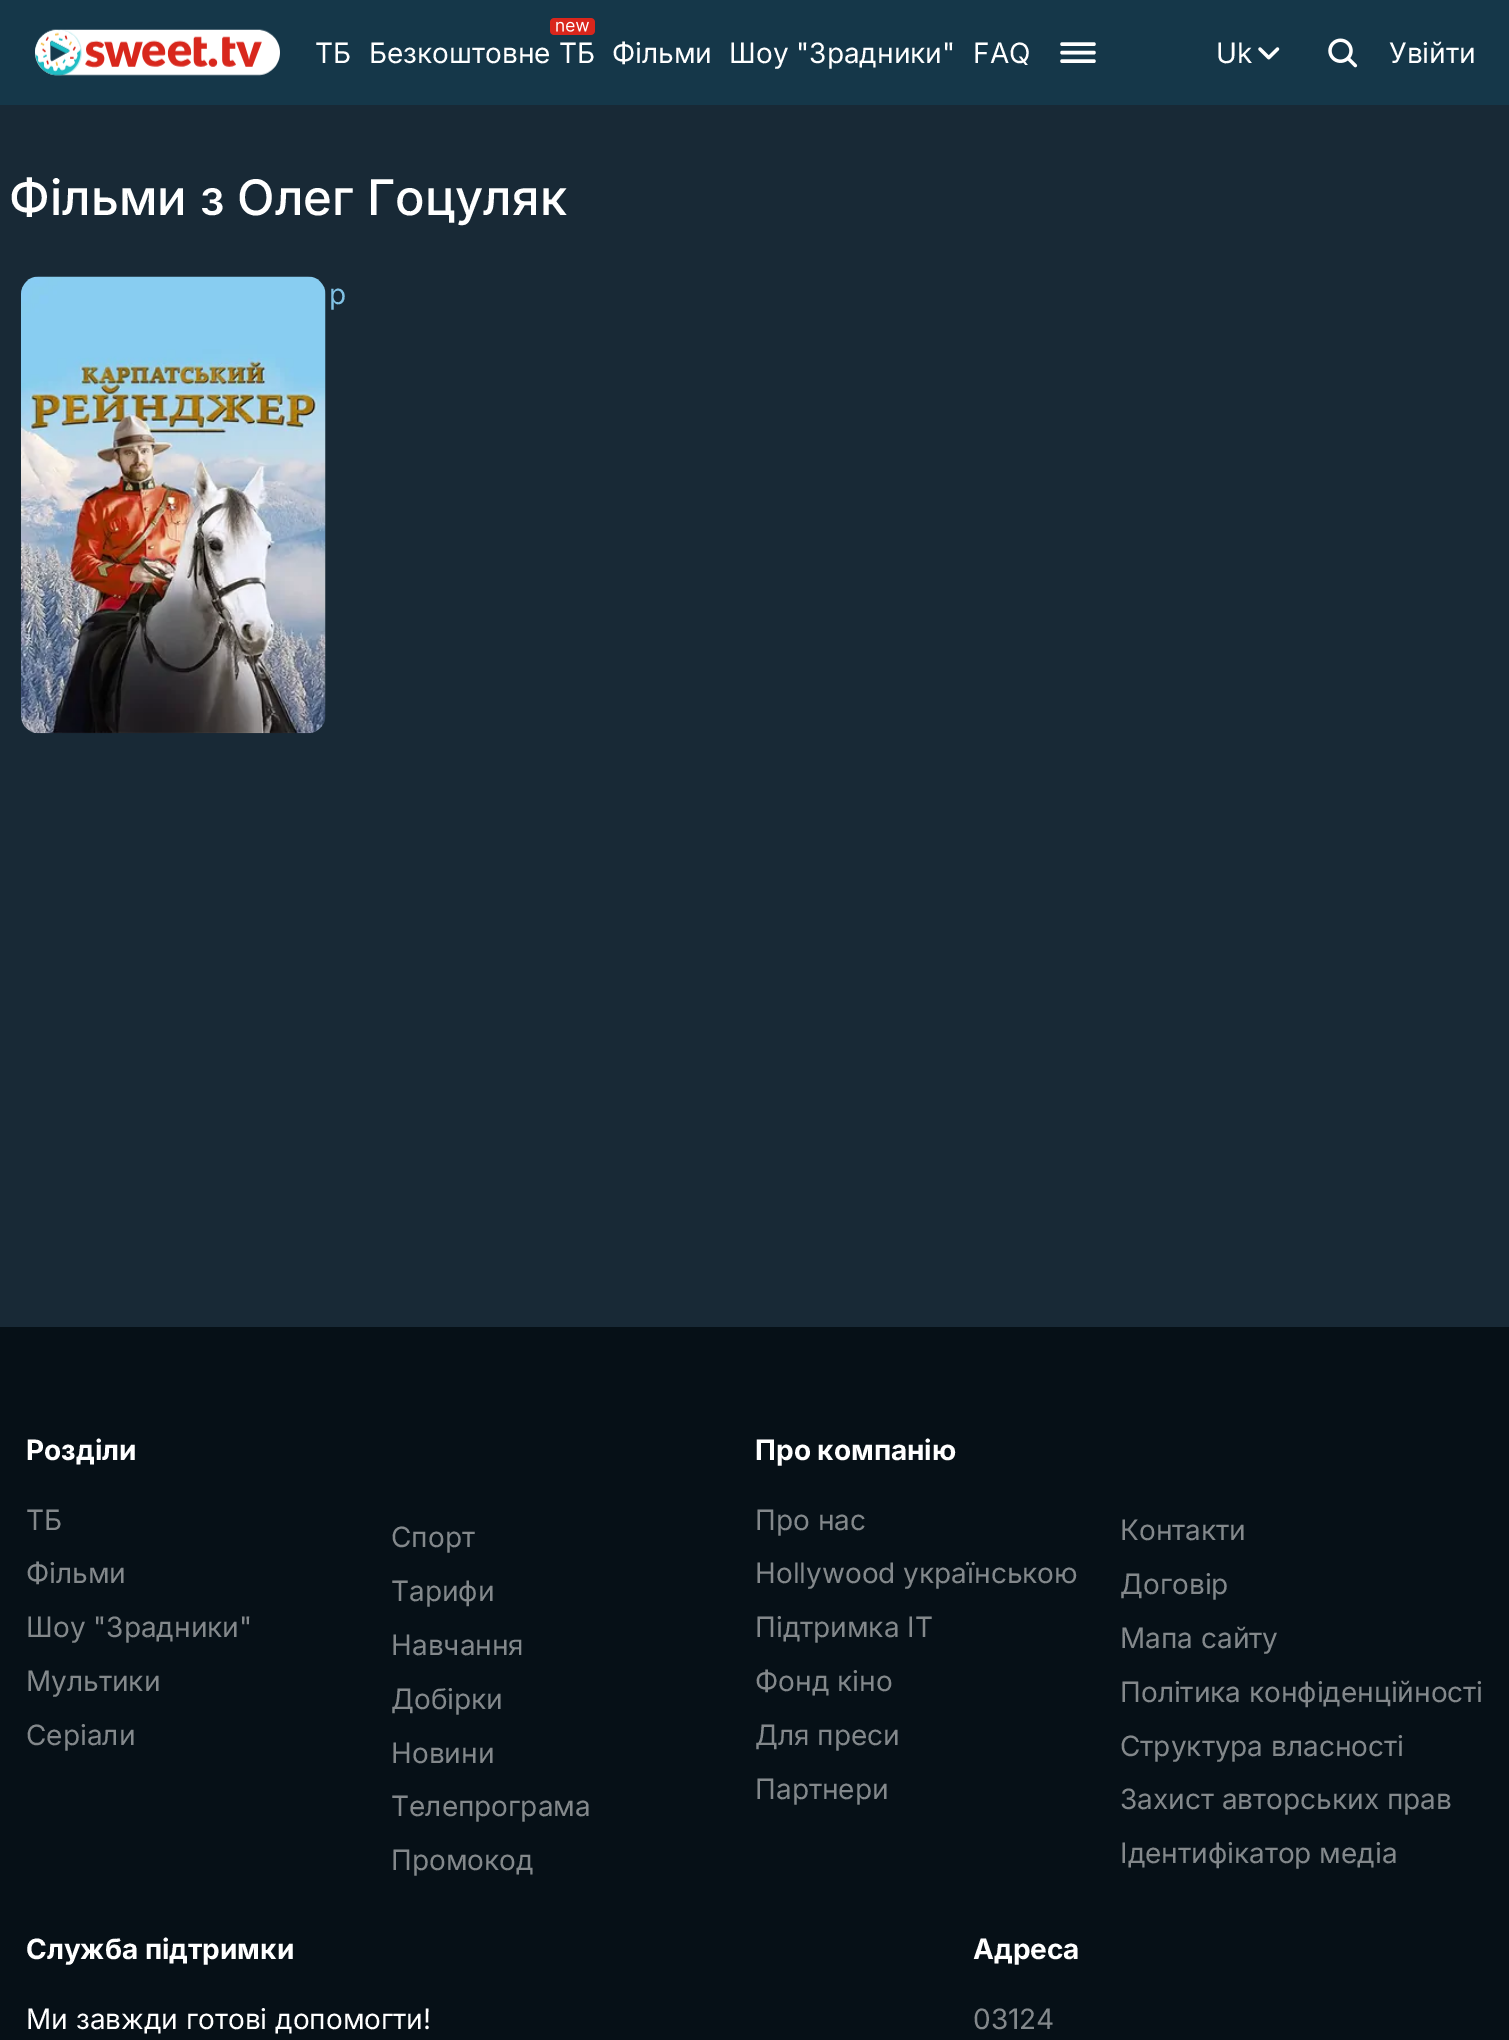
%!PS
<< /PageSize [1509 2040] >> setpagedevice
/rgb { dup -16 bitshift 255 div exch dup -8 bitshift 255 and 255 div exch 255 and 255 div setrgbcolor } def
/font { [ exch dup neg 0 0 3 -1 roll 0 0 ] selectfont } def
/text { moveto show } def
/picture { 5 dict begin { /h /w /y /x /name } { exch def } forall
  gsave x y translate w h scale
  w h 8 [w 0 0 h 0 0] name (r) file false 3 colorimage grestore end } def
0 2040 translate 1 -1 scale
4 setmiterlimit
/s1 { /Inter-Regular 28 font 16#FFFFFF rgb } def
/s2 { /Inter-Medium 49 font 16#FFFFFF rgb } def
/s3 { /Inter-Regular 28 font 16#81C2E5 rgb } def
/s4 { /Inter-Bold 28 font 16#FFFFFF rgb } def
/s5 { /Inter-Regular 28 font 16#83888B rgb } def
16#182936 rgb
0 0 1509 2040 rectfill
16#153749 rgb
0 0 1509 105 rectfill
(pic1.raw) 35 29 245 47 picture
s1
(ТБ) 315 63 text
(pic2.raw) 550 18 45 17 picture
(Безкоштовне ТБ) 369 63 text
(Фільми) 612 63 text
(Шоу "Зрадники") 729 63 text
(FAQ) 973 63 text
3.5 setlinewidth
1 setlinecap
1062 44 moveto 1094 44 lineto 1062 52.5 moveto 1094 52.5 lineto 1062 61 moveto 1094 61 lineto stroke
(Uk) 1216 63 text
(pic3.raw) 1258 47 22 13 picture
(pic4.raw) 1328 38 30 30 picture
(Увійти) 1389 63 text
s2
(Фільми з Олег Гоцуляк) 9 215 text
(pic5.raw) 21 276 305 458 picture
s3
(р) 329 304 text
16#061017 rgb
0 1327 1509 713 rectfill
s4
(Розділи) 26 1460 text
s5
(ТБ) 26 1530 text
(Фільми) 26 1583 text
(Шоу "Зрадники") 26 1637 text
(Мультики) 26 1691 text
(Серіали) 26 1745 text
(Спорт) 391 1547 text
(Тарифи) 391 1601 text
(Навчання) 391 1655 text
(Добірки) 391 1709 text
(Новини) 391 1763 text
(Телепрограма) 391 1816 text
(Промокод) 391 1870 text
s4
(Про компанію) 755 1460 text
s5
(Про нас) 755 1530 text
(Hollywood українською) 755 1583 text
(Підтримка IT) 755 1637 text
(Фонд кіно) 755 1691 text
(Для преси) 755 1745 text
(Партнери) 755 1799 text
(Контакти) 1120 1540 text
(Договір) 1120 1594 text
(Мапа сайту) 1120 1648 text
(Політика конфіденційності) 1120 1702 text
(Структура власності) 1120 1756 text
(Захист авторських прав) 1120 1809 text
(Ідентифікатор медіа) 1120 1863 text
s4
(Служба підтримки) 26 1959 text
s1
(Ми завжди готові допомогти!) 26 2029 text
s4
(Адреса) 973 1959 text
s5
(03124) 973 2029 text
showpage
